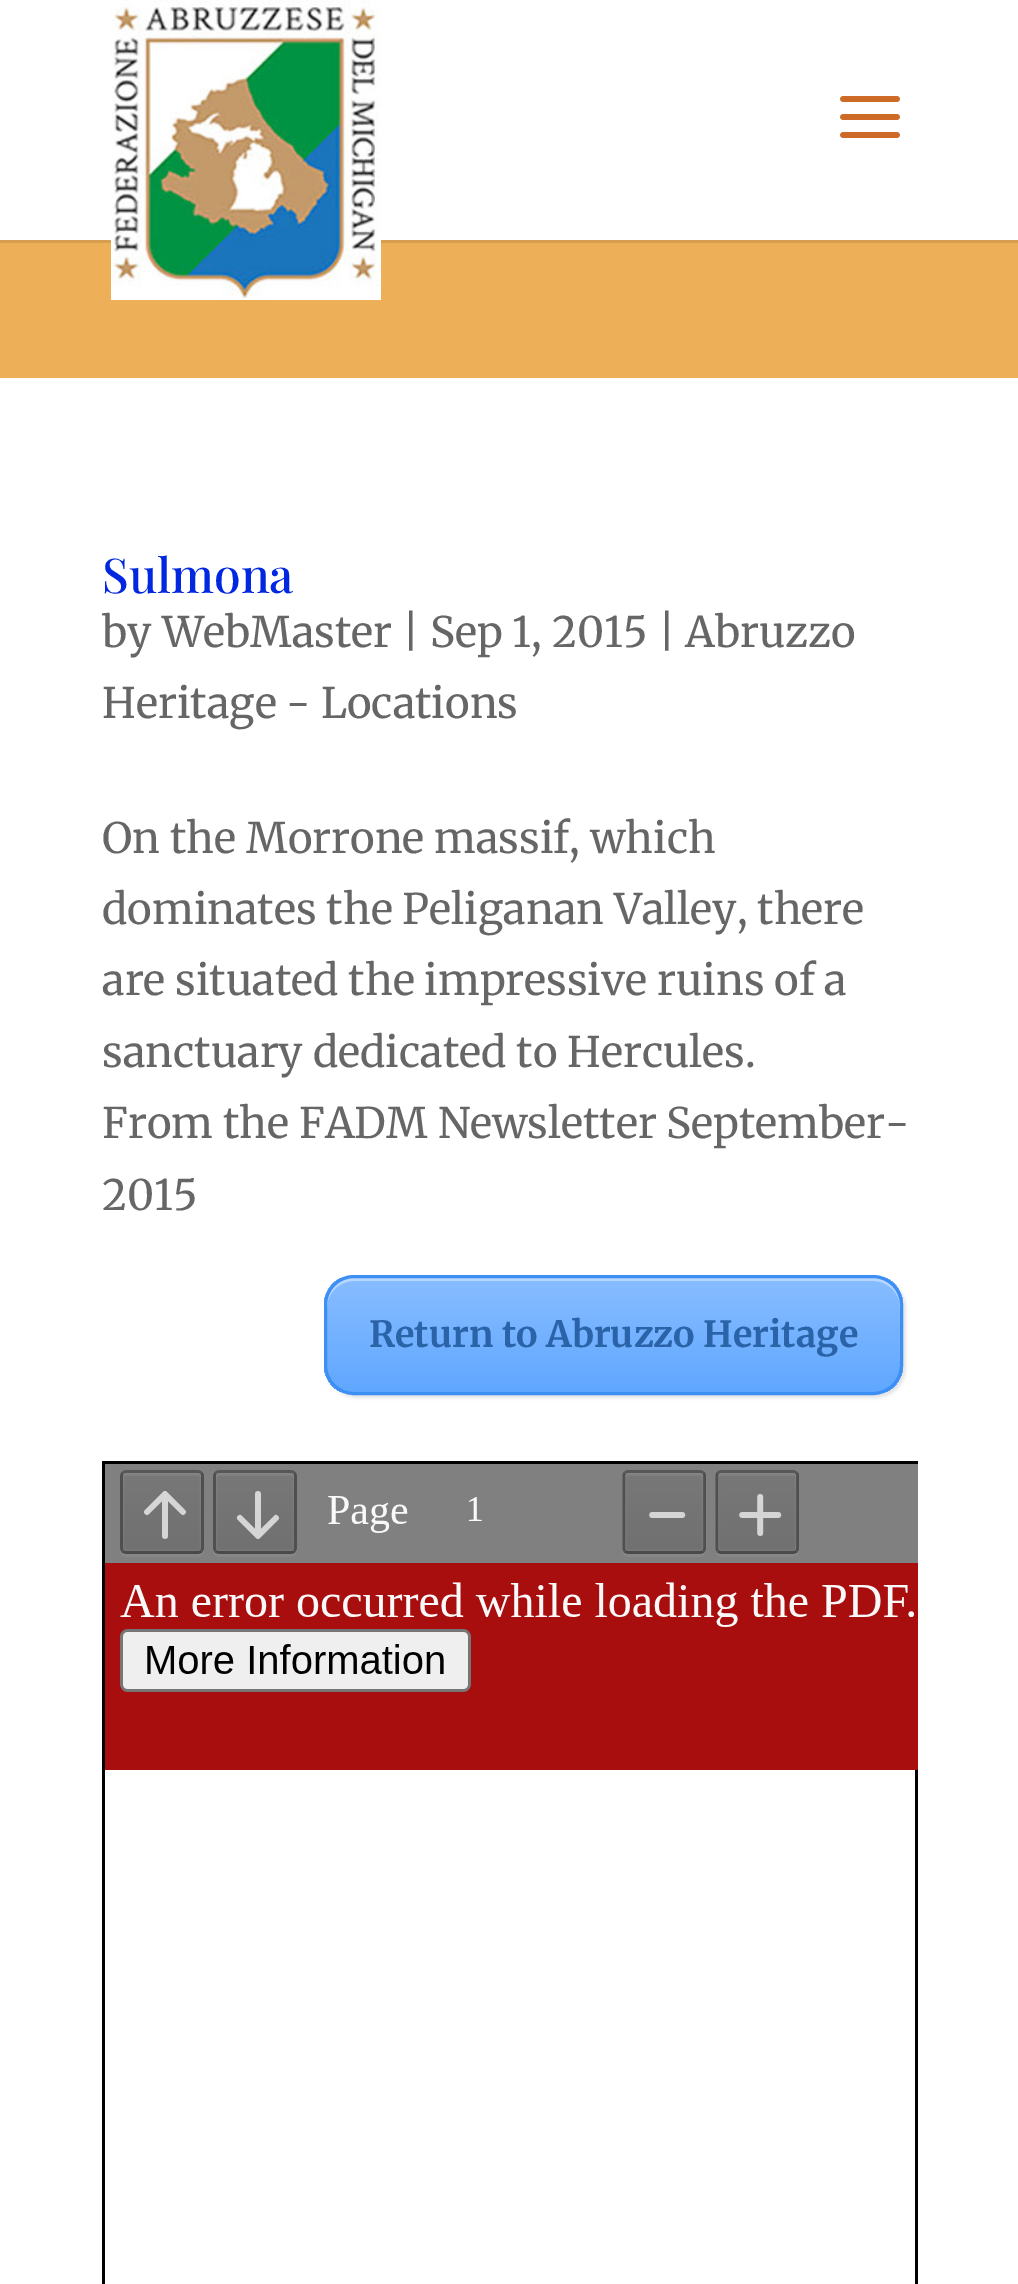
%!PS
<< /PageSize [1018 2284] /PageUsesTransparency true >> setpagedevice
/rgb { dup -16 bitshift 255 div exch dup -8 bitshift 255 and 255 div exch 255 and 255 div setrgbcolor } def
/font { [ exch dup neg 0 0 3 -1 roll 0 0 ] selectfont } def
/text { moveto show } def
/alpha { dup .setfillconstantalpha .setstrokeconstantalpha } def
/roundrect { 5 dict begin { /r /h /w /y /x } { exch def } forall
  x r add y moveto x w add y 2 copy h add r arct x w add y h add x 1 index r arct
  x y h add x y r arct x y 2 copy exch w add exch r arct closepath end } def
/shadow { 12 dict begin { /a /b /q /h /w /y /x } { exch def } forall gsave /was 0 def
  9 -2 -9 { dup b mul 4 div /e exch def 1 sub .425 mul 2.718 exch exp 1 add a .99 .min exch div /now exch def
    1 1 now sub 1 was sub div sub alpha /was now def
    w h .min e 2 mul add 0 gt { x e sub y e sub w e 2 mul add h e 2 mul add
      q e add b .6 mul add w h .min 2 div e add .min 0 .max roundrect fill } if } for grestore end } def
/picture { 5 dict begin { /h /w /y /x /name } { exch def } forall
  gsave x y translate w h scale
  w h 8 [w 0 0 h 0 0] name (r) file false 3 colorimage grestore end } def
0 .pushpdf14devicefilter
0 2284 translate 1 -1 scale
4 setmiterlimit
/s1 { /PlayfairDisplay-Medium 48 font 16#0227E0 rgb } def
/s2 { /Merriweather-Regular 42 font 16#666666 rgb } def
/s3 { /Merriweather-Bold 36 font 16#2B63A8 rgb } def
16#EDB059 rgb
0 0 1018 2284 rectfill
16#D59E50 rgb
0 240 1018 3 rectfill
16#FFFFFF rgb
0 0 1018 240 rectfill
(pic1.raw) 111 0 270 300 picture
(pic2.raw) 840 96 60 42 picture
0 378 1018 1906 rectfill
s1
(Sulmona) 102 593 text
s2
(by WebMaster | Sep 1, 2015 | Abruzzo) 102 647 text
(Heritage - Locations) 102 718 text
(On the Morrone massif, which) 102 853 text
(dominates the Peliganan Valley, there) 102 924 text
(are situated the impressive ruins of a) 102 995 text
(sanctuary dedicated to Hercules.) 102 1067 text
(From the FADM Newsletter September-) 102 1138 text
(2015) 102 1210 text
16#000000 rgb
327 1278 579 120 30 1.5 0.1 shadow
gsave
324 1275 579 120 30 roundrect clip newpath
gsave 324 1278 moveto 903 1278 lineto 903 1392 lineto 324 1392 lineto closepath clip newpath
<< /ShadingType 2 /ColorSpace /DeviceRGB /Coords [614 1278 614 1392] /Extend [true true] /Function << /FunctionType 2 /Domain [0 1] /C0 [0.533 0.741 1] /C1 [0.376 0.655 1] /N 1 >> >> shfill grestore
grestore
0.4 alpha
16#FFFFFF rgb
354 1281 moveto 873 1281 lineto 888 1281 900 1293 900 1308 curveto 900 1305 lineto 900 1290 888 1278 873 1278 curveto 354 1278 lineto 339 1278 327 1290 327 1305 curveto 327 1308 lineto 327 1293 339 1281 354 1281 curveto closepath fill
1 alpha
16#3E8FF4 rgb
3 setlinewidth
325.5 1276.5 576 117 28.5 roundrect stroke
s3
(Return to Abruzzo Heritage) 369 1347 text
(pic3.raw) 102 1461 816 823 picture
.poppdf14devicefilter showpage
